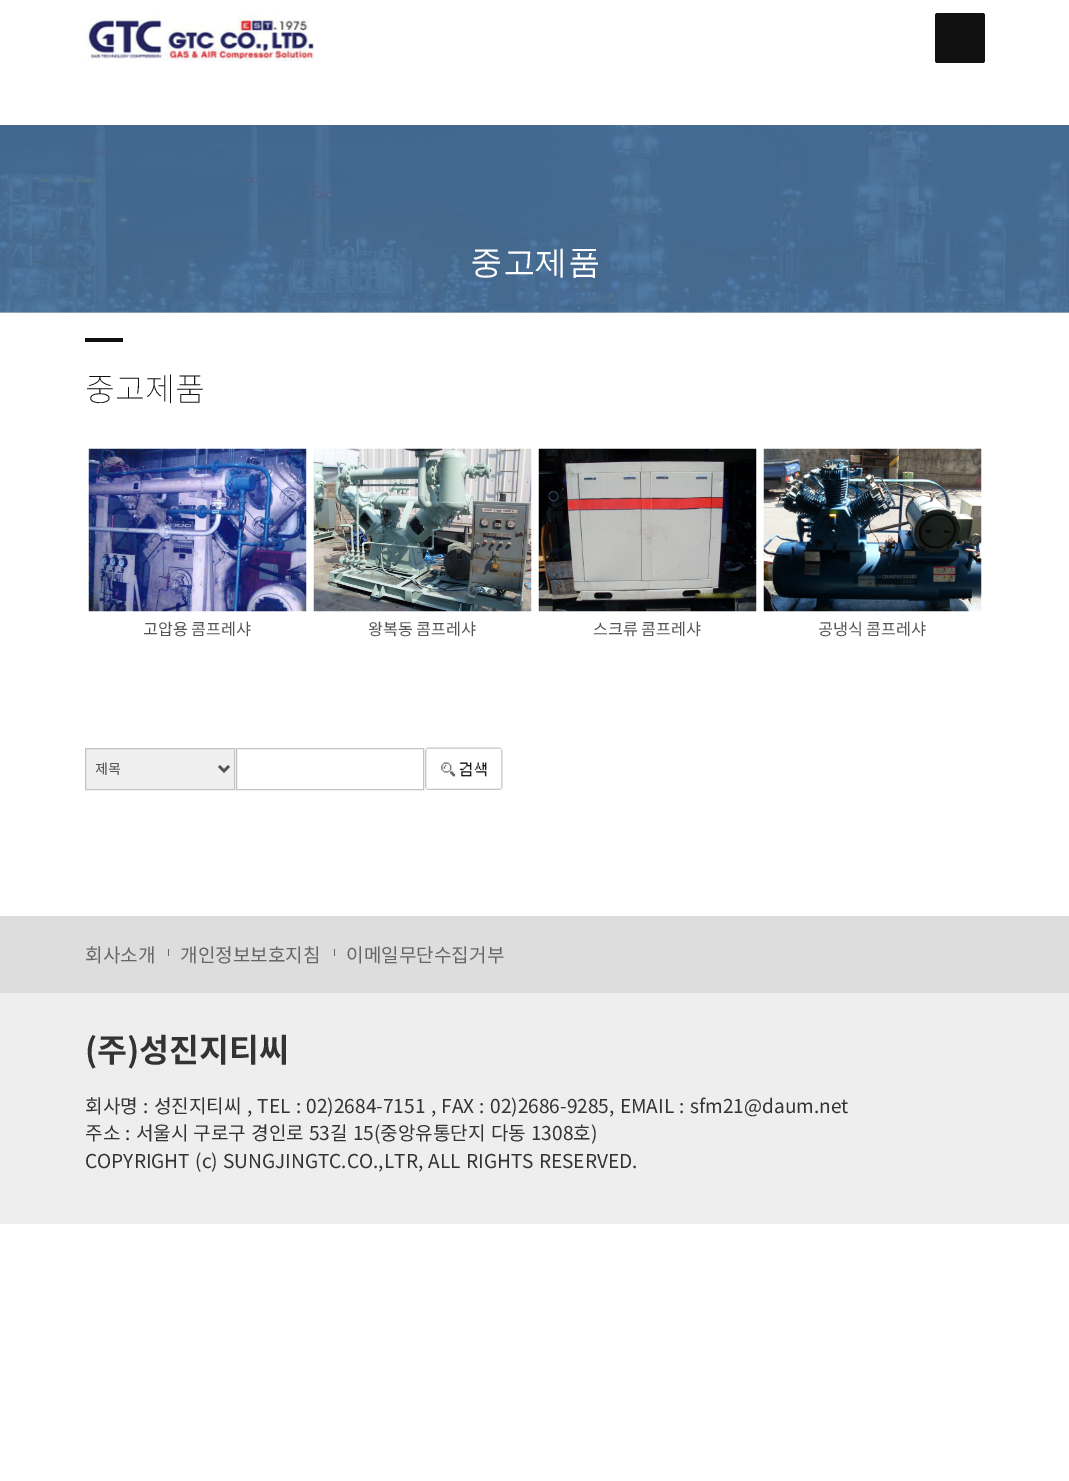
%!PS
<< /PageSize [1069 1481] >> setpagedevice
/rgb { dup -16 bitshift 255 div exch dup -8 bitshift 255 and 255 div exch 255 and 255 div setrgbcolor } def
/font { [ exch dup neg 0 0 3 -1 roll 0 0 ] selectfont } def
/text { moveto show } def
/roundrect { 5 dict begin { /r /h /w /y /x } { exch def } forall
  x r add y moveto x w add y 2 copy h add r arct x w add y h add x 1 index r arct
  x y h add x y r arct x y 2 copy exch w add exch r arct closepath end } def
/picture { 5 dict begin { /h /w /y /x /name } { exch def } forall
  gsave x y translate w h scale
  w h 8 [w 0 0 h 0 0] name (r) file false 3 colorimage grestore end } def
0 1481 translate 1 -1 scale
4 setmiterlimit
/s1 { /WenQuanYiZenHei-Medium 32.5 font 16#FFFFFF rgb } def
/s2 { /NotoSansKR-Thin 32.5 font 16#111111 rgb } def
/s3 { /NotoSansKR-Regular 16.25 font 16#555555 rgb } def
/s4 { /NotoSansKR-Regular 14 font 16#555555 rgb } def
/s5 { /NotoSansKR-Regular 19.1 font 16#666666 rgb } def
/s6 { /NotoSansKR-Bold 32.5 font 16#333333 rgb } def
16#FFFFFF rgb
0 0 1069 1481 rectfill
16#CCCCCC rgb
0 312 1069 1 rectfill
(pic1.raw) 85 15 230 46 picture
16#111111 rgb
935 13 50 50 2.5 roundrect fill
(pic2.raw) 0 125 1069 188 picture
s1
(중고제품) 470 273 text
16#111111 rgb
85 338 38 4 rectfill
s2
(중고제품) 85 401 text
(pic3.raw) 88 448 219 164 picture
s3
(고압용 콤프레샤) 143 635 text
(pic4.raw) 313 448 219 164 picture
(왕복동 콤프레샤) 368 635 text
(pic5.raw) 538 448 219 164 picture
(스크류 콤프레샤) 593 635 text
(pic6.raw) 763 448 219 164 picture
(공냉식 콤프레샤) 818 635 text
16#EFEFEF rgb
85.5 748.5 moveto 234.5 748.5 lineto 234.5 789.5 lineto 85.5 789.5 lineto closepath gsave fill grestore
16#C3C3C3 rgb
stroke
16#555555 rgb
2.5 setlinewidth
219 766 moveto 224 771 lineto 229 766 lineto stroke
s4
(제목) 95 774 text
16#C3C3C3 rgb
1 setlinewidth
236.5 748.5 187 41 rectstroke
(pic7.raw) 425 747 78 43 picture
16#EEEEEE rgb
0 993 1069 231 rectfill
16#DDDDDD rgb
0 916 1069 77 rectfill
s5
(회사소개) 85 962 text
168 949 1 7 rectfill
(개인정보보호지침) 180 962 text
334 949 1 7 rectfill
(이메일무단수집거부) 346 962 text
s6
(\(주\)성진지티씨) 85 1062 text
/NotoSansKR-Regular 19.1 font
85 1113 moveto 1 0 32 (회사명 : 성진지티씨 , TEL : 02\)2684-7151 , FAX : 02\)2686-9285, EMAIL : sfm21@daum.net) widthshow
85 1140 moveto 0.75 0 32 (주소 : 서울시 구로구 경인로 53길 15\(중앙유통단지 다동 1308호\)) widthshow
85 1168 moveto 1 0 32 (COPYRIGHT \(c\) SUNGJINGTC.CO.,LTR, ALL RIGHTS RESERVED.) widthshow
showpage
